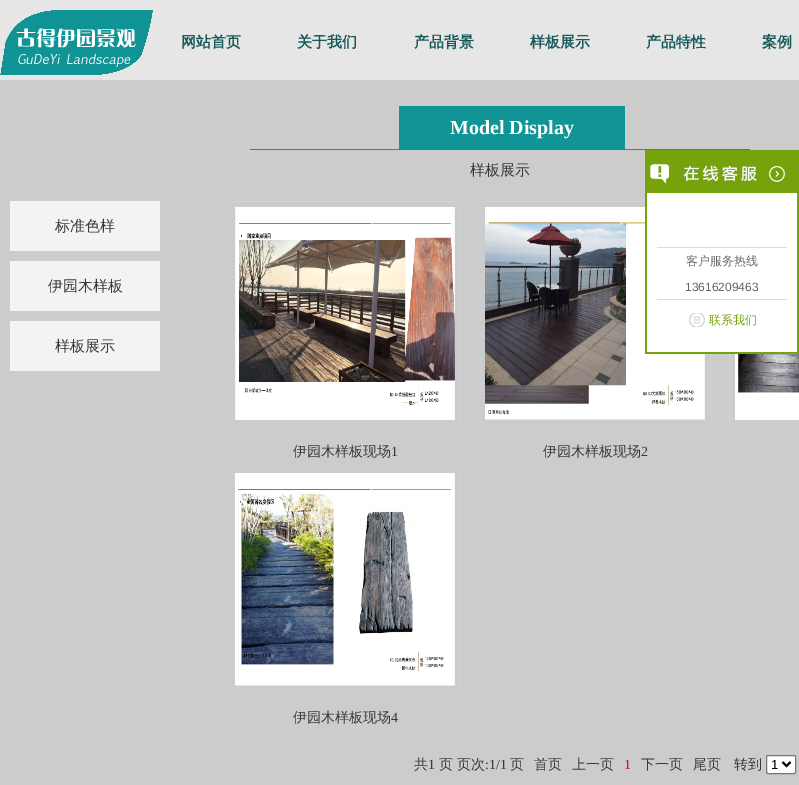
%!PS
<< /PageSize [799 785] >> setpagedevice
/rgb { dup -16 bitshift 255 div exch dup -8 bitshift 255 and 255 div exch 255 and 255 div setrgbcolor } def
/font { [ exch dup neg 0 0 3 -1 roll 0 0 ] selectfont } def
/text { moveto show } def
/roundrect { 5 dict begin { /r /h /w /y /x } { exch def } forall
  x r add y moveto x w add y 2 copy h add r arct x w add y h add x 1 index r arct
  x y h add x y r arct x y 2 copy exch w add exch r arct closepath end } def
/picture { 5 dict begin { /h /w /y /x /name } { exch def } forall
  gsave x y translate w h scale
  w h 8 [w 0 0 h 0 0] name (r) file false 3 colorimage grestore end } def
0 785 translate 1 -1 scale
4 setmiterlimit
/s1 { /WenQuanYiZenHei-Bold 15 font 16#185858 rgb } def
/s2 { /LiberationSerif-Bold 20 font 16#FFFFFF rgb } def
/s3 { /WenQuanYiZenHei-Medium 15 font 16#393939 rgb } def
/s4 { /WenQuanYiZenHei-Medium 14 font 16#393939 rgb } def
/s5 { /LiberationSerif-Regular 14 font 16#393939 rgb } def
/s6 { /LiberationSerif-Regular 14 font 16#FF0000 rgb } def
/s7 { /LiberationSans-Regular 13 font 16#000000 rgb } def
/s8 { /WenQuanYiZenHei-Medium 12 font 16#666666 rgb } def
/s9 { /LiberationSans-Regular 12 font 16#666666 rgb } def
/s10 { /WenQuanYiZenHei-Medium 12 font 16#76A20C rgb } def
16#CCCCCC rgb
0 0 799 785 rectfill
16#E6E6E6 rgb
0 0 799 80 rectfill
(pic1.raw) 0 10 153 65 picture
s1
(网站首页) 181 47 text
(关于我们) 297 47 text
(产品背景) 414 47 text
(样板展示) 530 47 text
(产品特性) 646 47 text
(案例) 762 47 text
16#109495 rgb
399 106 226 44 rectfill
s2
(Model Display) 450 134 text
16#109495 rgb
250 149 149 1 rectfill
625 149 125 1 rectfill
s3
(样板展示) 470 175 text
16#F2F4F2 rgb
10 201 150 50 rectfill
s3
(标准色样) 55 231 text
16#F2F4F2 rgb
10 261 150 50 rectfill
s3
(伊园木样板) 48 291 text
16#F2F4F2 rgb
10 321 150 50 rectfill
s3
(样板展示) 55 351 text
16#D0D0D0 rgb
729.5 201.5 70 224 rectstroke
(pic2.raw) 735 354 64 66 picture
229.5 201.5 231 224 rectstroke
(pic3.raw) 235 207 220 213 picture
s4
(伊园木样板现场) 293 456 text
s5
(1) 391 456 text
16#D0D0D0 rgb
479.5 201.5 231 224 rectstroke
(pic4.raw) 485 207 220 213 picture
s4
(伊园木样板现场) 543 456 text
s5
(2) 641 456 text
16#D0D0D0 rgb
229.5 467.5 231 224 rectstroke
(pic5.raw) 235 473 220 213 picture
s4
(伊园木样板现场) 293 722 text
s5
(4) 391 722 text
s4
(共) 414 769 text
s5
(1) 428 769 text
s4
(页 页次) 439 769 text
s5
(:1/1) 485 769 text
s4
(页) 510 769 text
(首页) 534 769 text
(上一页) 572 769 text
s6
(1) 624 769 text
s4
(下一页) 641 769 text
(尾页) 693 769 text
(转到) 734 769 text
16#FFFFFF rgb
766.5 755.5 29 18 1.5 roundrect gsave fill grestore
16#767676 rgb
stroke
16#000000 rgb
2 setlinewidth
782.5 762 moveto 786.5 766 lineto 790.5 762 lineto stroke
s7
(1) 771 769 text
(pic6.raw) 645 150 154 46 picture
(pic7.raw) 769 166 16 16 picture
(pic8.raw) 645 196 154 150 picture
16#DDDDDD rgb
657 247 130 1 rectfill
657 299 130 1 rectfill
s8
(客户服务热线) 686 265 text
s9
(13616209463) 685 291 text
(pic9.raw) 689 313 16 14 picture
s10
(联系我们) 709 324 text
(pic10.raw) 645 346 154 8 picture
showpage
